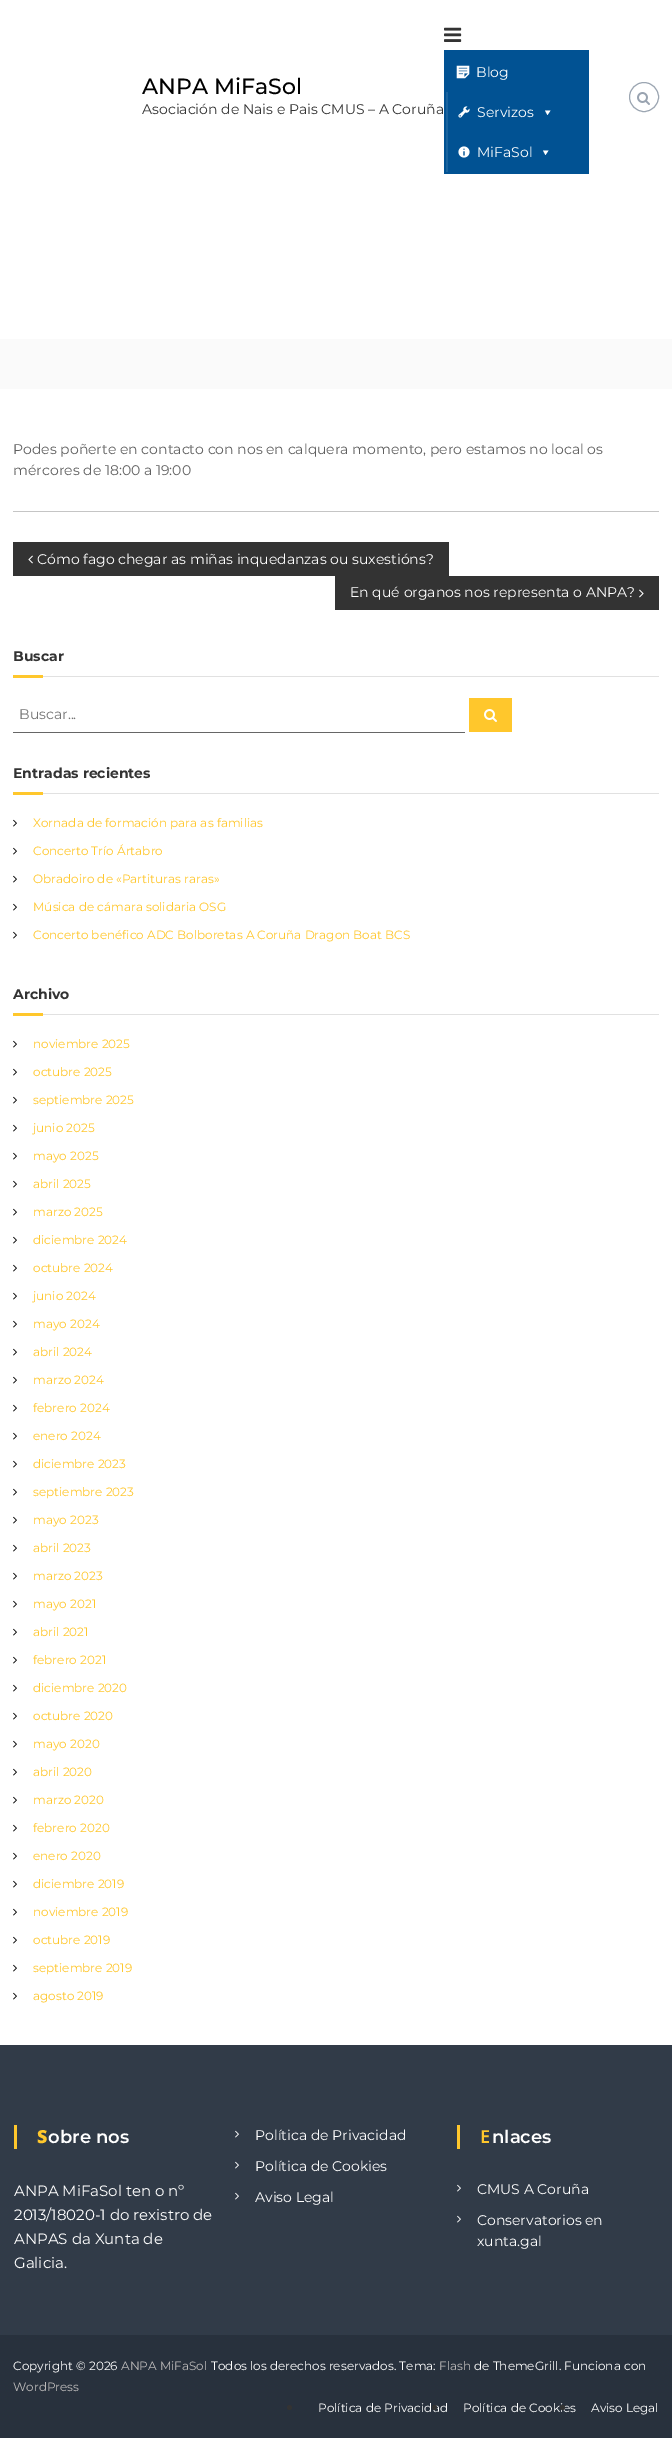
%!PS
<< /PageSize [672 2438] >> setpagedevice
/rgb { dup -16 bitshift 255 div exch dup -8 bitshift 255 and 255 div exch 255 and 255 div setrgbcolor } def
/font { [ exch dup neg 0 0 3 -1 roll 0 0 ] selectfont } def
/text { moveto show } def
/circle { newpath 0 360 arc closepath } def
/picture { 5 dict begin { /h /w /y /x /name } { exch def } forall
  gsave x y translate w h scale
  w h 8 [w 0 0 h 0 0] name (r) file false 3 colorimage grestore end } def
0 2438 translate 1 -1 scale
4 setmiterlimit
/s1 { /Montserrat-Medium 22 font 16#000000 rgb } def
/s2 { /Montserrat-Regular 14 font 16#333333 rgb } def
/s3 { /Montserrat-Regular 14 font 16#FFFFFF rgb } def
/s4 { /Montserrat-Regular 14 font 16#606060 rgb } def
/s5 { /Montserrat-Bold 14 font 16#333333 rgb } def
/s6 { /Montserrat-Regular 14 font 16#757575 rgb } def
/s7 { /Montserrat-Regular 12 font 16#FFC72C rgb } def
/s8 { /NotoSans-Black 18 font 16#FFC72C rgb } def
/s9 { /Montserrat-SemiBold 18 font 16#FFFFFF rgb } def
/s10 { /Montserrat-Regular 15 font 16#FFFFFF rgb } def
/s11 { /NotoSans-SemiBold 18 font 16#FFC72C rgb } def
/s12 { /Montserrat-Regular 12 font 16#FFFFFF rgb } def
/s13 { /Montserrat-Regular 12 font 16#BCBABA rgb } def
16#FFFFFF rgb
0 0 672 2438 rectfill
s1
(ANPA MiFaSol) 142 94 text
s2
(Asociación de Nais e Pais CMUS – A Coruña) 142 114 text
(pic1.raw) 444 27 18 15 picture
16#015293 rgb
444 50 145 124 rectfill
(pic2.raw) 456 65 14 14 picture
s3
(Blog) 476 77 text
16#1A639E rgb
446 92 2 40 rectfill
(pic3.raw) 458 106 12 12 picture
s3
(Servizos) 477 117 text
550.5 110.5 moveto 547.5 115 lineto 545 110.5 lineto closepath fill
16#1A639E rgb
446 132 2 40 rectfill
(pic4.raw) 458 146 12 12 picture
s3
(MiFaSol) 477 157 text
548.5 150.5 moveto 545.5 155 lineto 543 150.5 lineto closepath fill
16#9CA6B2 rgb
644 97 14.5 circle stroke
(pic5.raw) 637 92 13 13 picture
16#FAFAFA rgb
0 339 672 50 rectfill
16#C5C5C5 rgb
13 511 646 1 rectfill
s4
(Podes poñerte en contacto con nos en calquera momento, pero estamos no local os) 13 454 text
(mércores de 18:00 a 19:00) 13 475 text
16#333333 rgb
13 542 436 34 rectfill
(pic6.raw) 28 555 5 9 picture
s3
(Cómo fago chegar as miñas inquedanzas ou suxestións?) 37 564 text
16#333333 rgb
335 576 324 34 rectfill
s3
(En qué organos nos representa o ANPA?) 350 597 text
(pic7.raw) 639 589 5 9 picture
s5
(Buscar) 13 661 text
16#FFC72C rgb
13 675 30 3 rectfill
16#E1E1E1 rgb
43 676 616 1 rectfill
16#666666 rgb
13 732 452 1 rectfill
s6
(Buscar...) 19 719 text
16#FFC72C rgb
469 698 43 34 rectfill
(pic8.raw) 484 709 13 13 picture
s5
(Entradas recientes) 13 778 text
16#FFC72C rgb
13 792 30 3 rectfill
16#E1E1E1 rgb
43 793 616 1 rectfill
(pic9.raw) 13 819 4 8 picture
s7
(Xornada de formación para as familias) 33 827 text
(pic9.raw) 13 847 4 8 picture
(Concerto Trío Ártabro) 33 855 text
(pic9.raw) 13 875 4 8 picture
(Obradoiro de «Partituras raras») 33 883 text
(pic9.raw) 13 903 4 8 picture
(Música de cámara solidaria OSG) 33 911 text
(pic9.raw) 13 931 4 8 picture
(Concerto benéfico ADC Bolboretas A Coruña Dragon Boat BCS) 33 939 text
s5
(Archivo) 13 999 text
16#FFC72C rgb
13 1013 30 3 rectfill
16#E1E1E1 rgb
43 1014 616 1 rectfill
(pic9.raw) 13 1040 4 8 picture
s7
(noviembre 2025) 33 1048 text
(pic9.raw) 13 1068 4 8 picture
(octubre 2025) 33 1076 text
(pic9.raw) 13 1096 4 8 picture
(septiembre 2025) 33 1104 text
(pic9.raw) 13 1124 4 8 picture
(junio 2025) 33 1132 text
(pic9.raw) 13 1152 4 8 picture
(mayo 2025) 33 1160 text
(pic9.raw) 13 1180 4 8 picture
(abril 2025) 33 1188 text
(pic9.raw) 13 1208 4 8 picture
(marzo 2025) 33 1216 text
(pic9.raw) 13 1236 4 8 picture
(diciembre 2024) 33 1244 text
(pic9.raw) 13 1264 4 8 picture
(octubre 2024) 33 1272 text
(pic9.raw) 13 1292 4 8 picture
(junio 2024) 33 1300 text
(pic9.raw) 13 1320 4 8 picture
(mayo 2024) 33 1328 text
(pic9.raw) 13 1348 4 8 picture
(abril 2024) 33 1356 text
(pic9.raw) 13 1376 4 8 picture
(marzo 2024) 33 1384 text
(pic9.raw) 13 1404 4 8 picture
(febrero 2024) 33 1412 text
(pic9.raw) 13 1432 4 8 picture
(enero 2024) 33 1440 text
(pic9.raw) 13 1460 4 8 picture
(diciembre 2023) 33 1468 text
(pic9.raw) 13 1488 4 8 picture
(septiembre 2023) 33 1496 text
(pic9.raw) 13 1516 4 8 picture
(mayo 2023) 33 1524 text
(pic9.raw) 13 1544 4 8 picture
(abril 2023) 33 1552 text
(pic9.raw) 13 1572 4 8 picture
(marzo 2023) 33 1580 text
(pic9.raw) 13 1600 4 8 picture
(mayo 2021) 33 1608 text
(pic9.raw) 13 1628 4 8 picture
(abril 2021) 33 1636 text
(pic9.raw) 13 1656 4 8 picture
(febrero 2021) 33 1664 text
(pic9.raw) 13 1684 4 8 picture
(diciembre 2020) 33 1692 text
(pic9.raw) 13 1712 4 8 picture
(octubre 2020) 33 1720 text
(pic9.raw) 13 1740 4 8 picture
(mayo 2020) 33 1748 text
(pic9.raw) 13 1768 4 8 picture
(abril 2020) 33 1776 text
(pic9.raw) 13 1796 4 8 picture
(marzo 2020) 33 1804 text
(pic9.raw) 13 1824 4 8 picture
(febrero 2020) 33 1832 text
(pic9.raw) 13 1852 4 8 picture
(enero 2020) 33 1860 text
(pic9.raw) 13 1880 4 8 picture
(diciembre 2019) 33 1888 text
(pic9.raw) 13 1908 4 8 picture
(noviembre 2019) 33 1916 text
(pic9.raw) 13 1936 4 8 picture
(octubre 2019) 33 1944 text
(pic9.raw) 13 1964 4 8 picture
(septiembre 2019) 33 1972 text
(pic9.raw) 13 1992 4 8 picture
(agosto 2019) 33 2000 text
16#313B48 rgb
0 2045 672 290 rectfill
16#FFC72C rgb
14 2125 3 24 rectfill
s8
(S) 37 2143 text
s9
(obre nos) 48 2143 text
s10
(ANPA MiFaSol ten o nº) 14 2196 text
(2013/18020-1 do rexistro de) 14 2220 text
(ANPAS da Xunta de) 14 2244 text
(Galicia.) 14 2268 text
(pic10.raw) 235 2130 4 8 picture
s3
(Política de Privacidad) 255 2140 text
(pic10.raw) 235 2161 4 8 picture
(Política de Cookies) 255 2171 text
(pic10.raw) 235 2192 4 8 picture
(Aviso Legal) 255 2202 text
16#FFC72C rgb
457 2125 3 24 rectfill
s11
(E) 480 2143 text
s9
(nlaces) 492 2143 text
(pic10.raw) 457 2184 4 8 picture
s3
(CMUS A Coruña) 477 2194 text
(pic10.raw) 457 2215 4 8 picture
(Conservatorios en) 477 2225 text
(xunta.gal) 477 2246 text
16#28313D rgb
0 2335 672 103 rectfill
s12
(Copyright © 2026) 13 2370 text
s13
(ANPA MiFaSol) 121 2370 text
s12
(Todos los derechos reservados. Tema:) 211 2370 text
s13
(Flash) 439 2370 text
s12
(de ThemeGrill. Funciona con) 474 2370 text
s13
(WordPress) 13 2391 text
16#333333 rgb
289.5 2407.5 2.5 circle fill
s12
(Política de Privacidad) 318 2412 text
16#333333 rgb
434.5 2407.5 2.5 circle fill
s12
(Política de Cookies) 463 2412 text
16#333333 rgb
562.5 2407.5 2.5 circle fill
s12
(Aviso Legal) 591 2412 text
showpage
